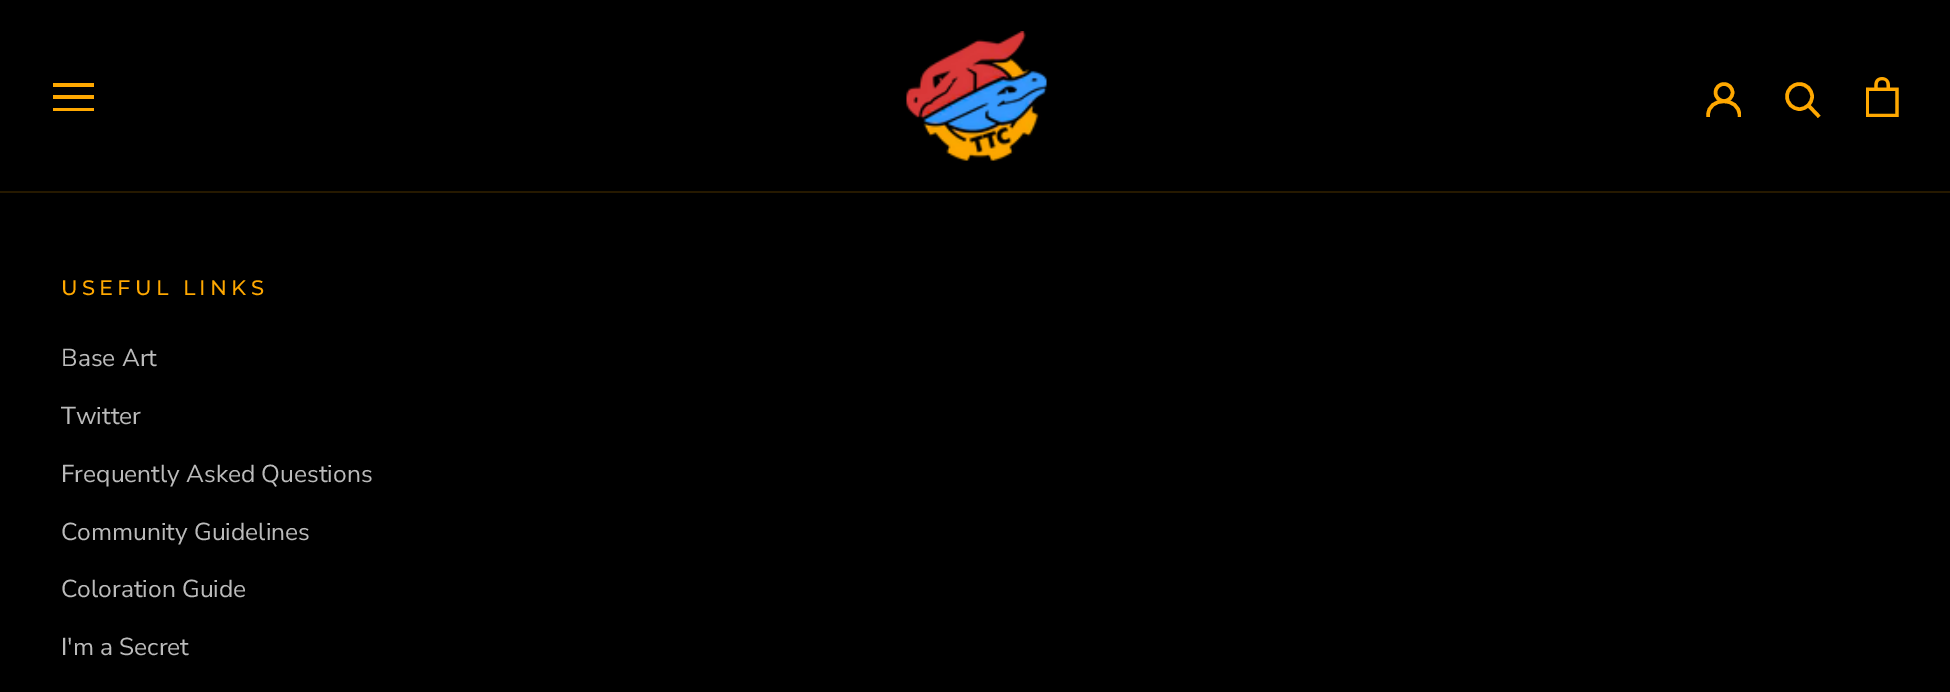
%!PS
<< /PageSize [1950 692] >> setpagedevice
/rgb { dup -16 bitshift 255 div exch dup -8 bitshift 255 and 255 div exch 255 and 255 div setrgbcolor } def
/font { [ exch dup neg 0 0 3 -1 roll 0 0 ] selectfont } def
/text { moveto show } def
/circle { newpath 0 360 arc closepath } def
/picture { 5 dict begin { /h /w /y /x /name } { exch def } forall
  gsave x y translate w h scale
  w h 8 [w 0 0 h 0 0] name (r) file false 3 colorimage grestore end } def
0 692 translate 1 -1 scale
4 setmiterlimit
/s1 { /NunitoSans-Regular 24.5 font 16#BBBBBB rgb } def
16#000000 rgb
0 0 1950 692 rectfill
16#261900 rgb
0 191 1950 2 rectfill
gsave
53 82 42 30 rectclip
16#FFA800 rgb
52 111 moveto 52 108 lineto 94 108 lineto 94 111 lineto closepath 52 95 moveto 94 95 lineto 94 99 lineto 52 99 lineto closepath 52 83 moveto 94 83 lineto 94 87 lineto 52 87 lineto closepath fill
grestore
(pic1.raw) 906 31 141 130 picture
gsave
1706 82 35 35 rectclip
16#FFA800 rgb
3.5 setlinewidth
2 setlinecap
1708 115.5 moveto 1708 96.5 1739.5 96.5 1739.5 115.5 curveto stroke
grestore
16#FFA800 rgb
3.5 setlinewidth
1724 92.5 8.5 circle stroke
2 setlinecap
1818 115.5 moveto 1808.5 105.5 lineto stroke
0 setlinecap
1799.5 96.5 12.5 circle stroke
(pic2.raw) 1866 77 33 40 picture
/Montserrat-Medium 21 font
61 295 moveto 4.25 0 (USEFUL LINKS) ashow
s1
(Base Art) 61 366 text
(Twitter) 61 424 text
(Frequently Asked Questions) 61 482 text
(Community Guidelines) 61 540 text
(Coloration Guide) 61 597 text
(I'm a Secret) 61 655 text
showpage
